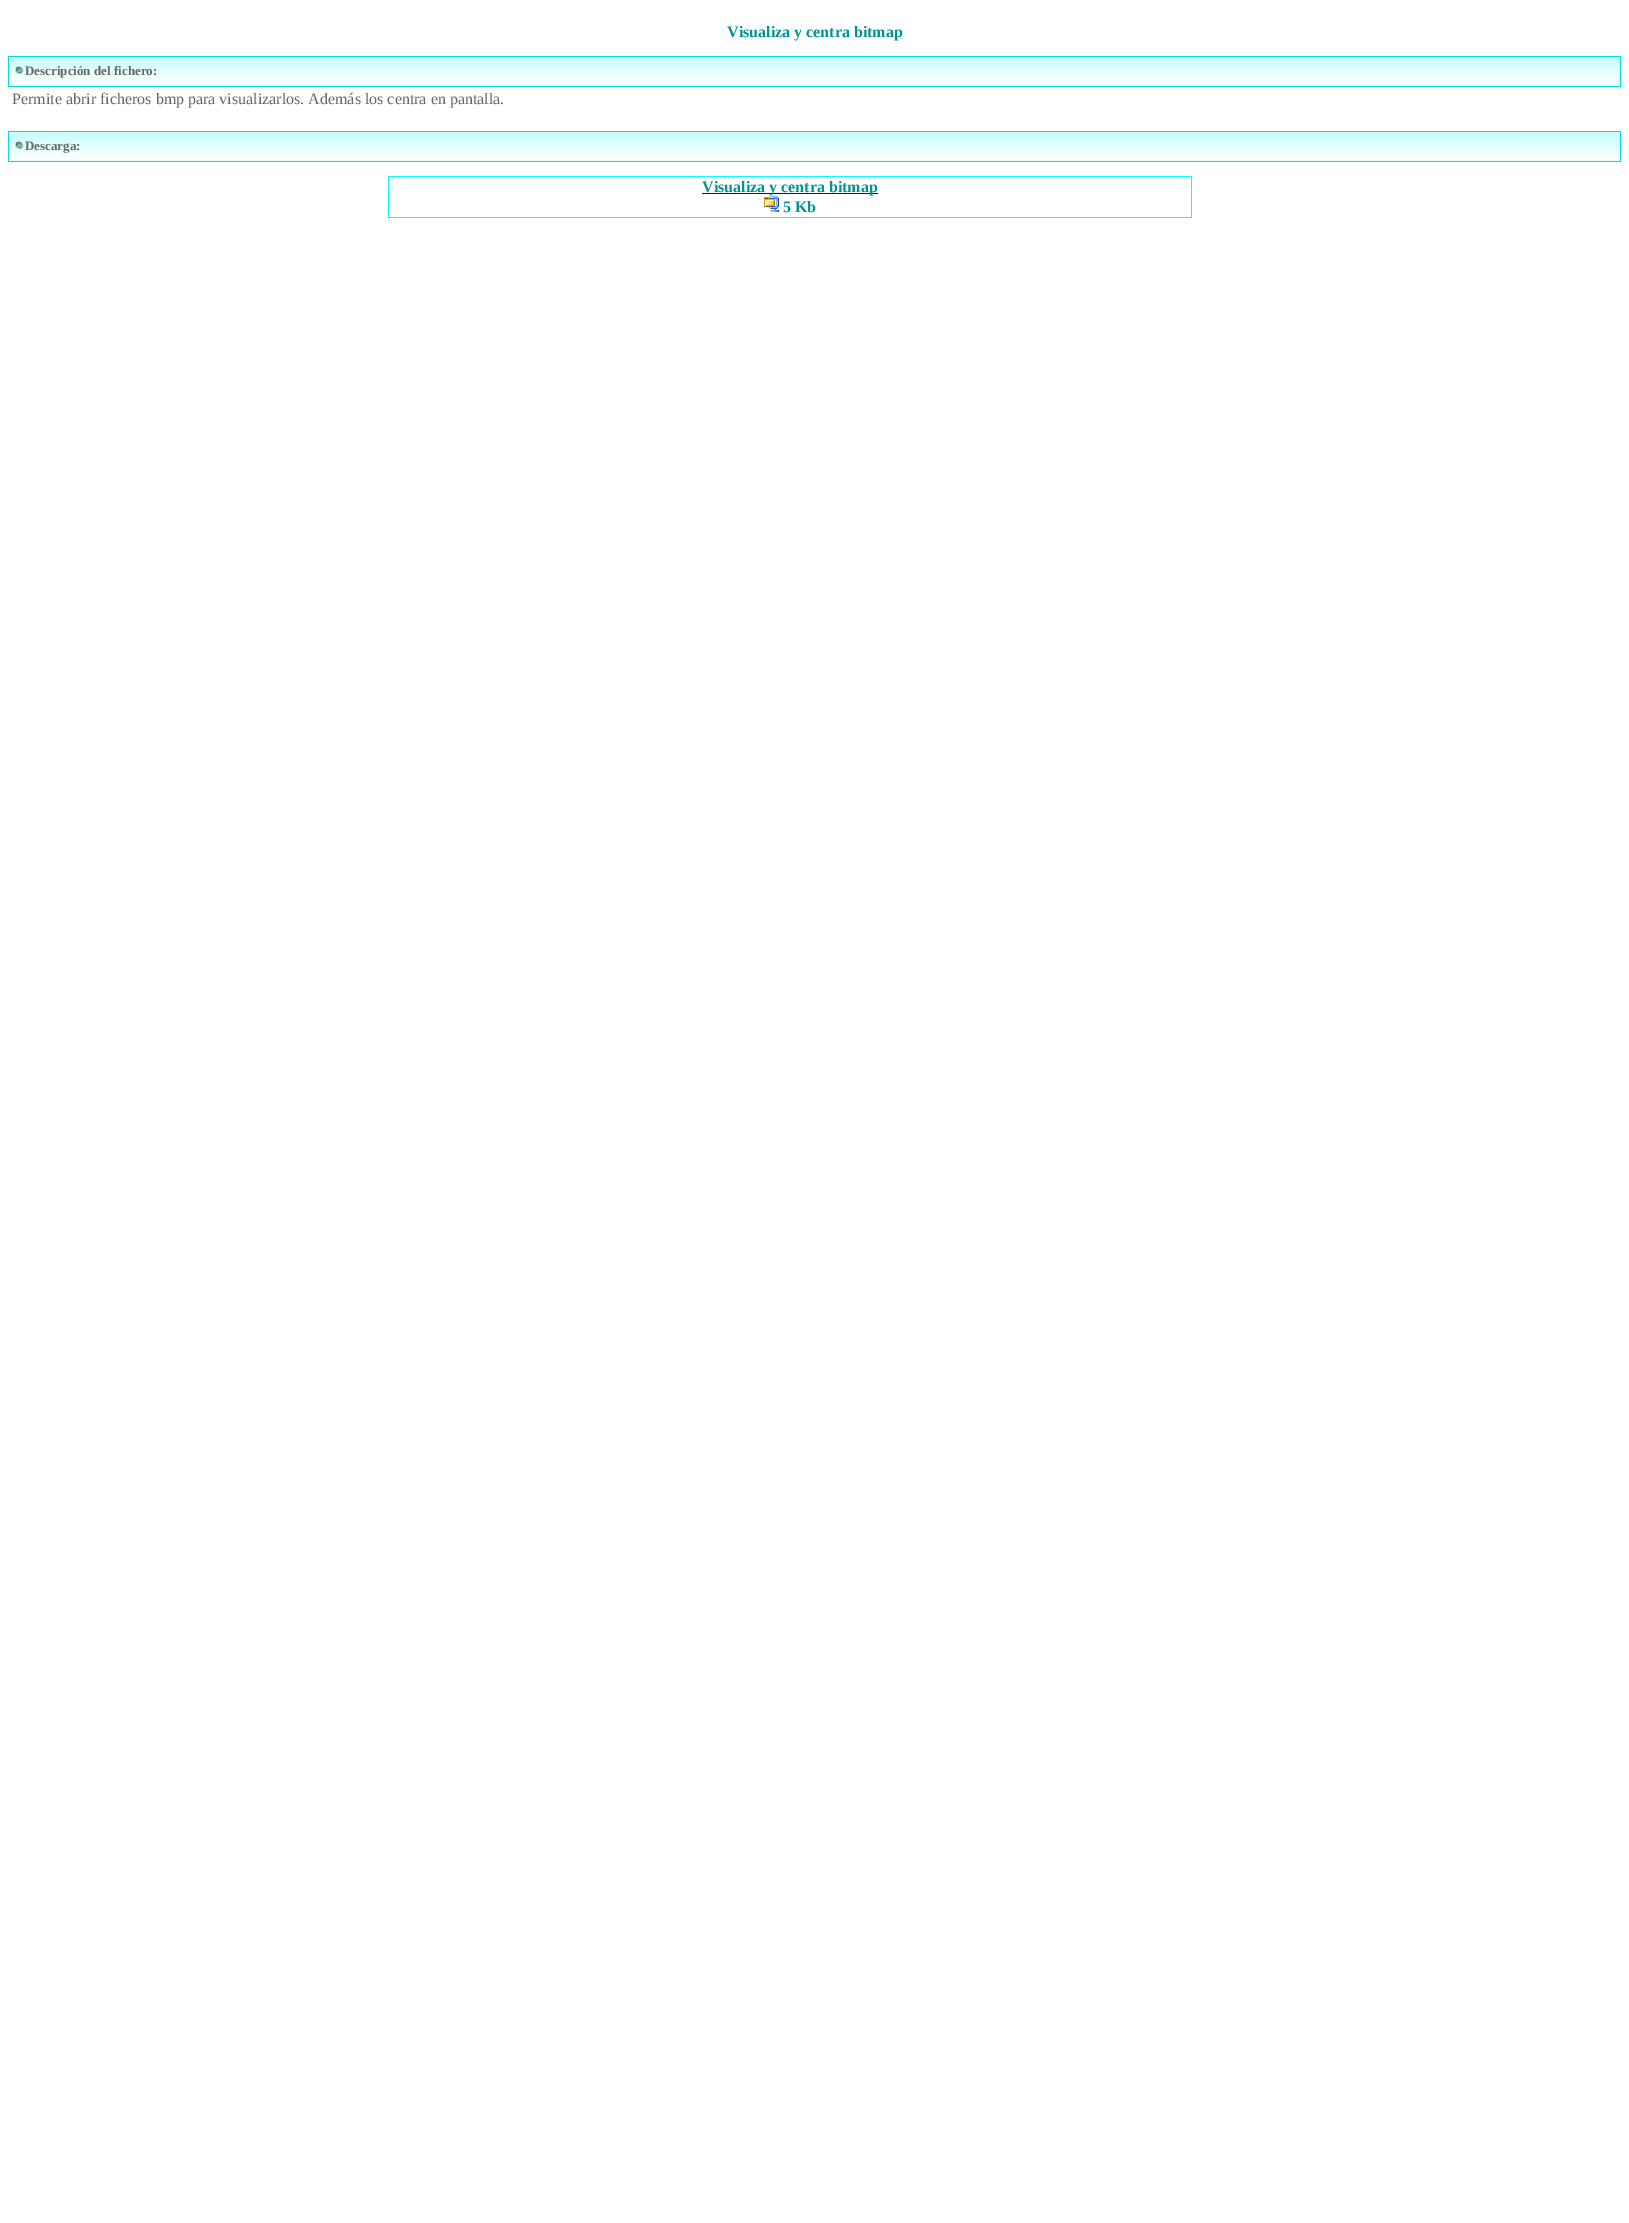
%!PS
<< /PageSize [1629 2223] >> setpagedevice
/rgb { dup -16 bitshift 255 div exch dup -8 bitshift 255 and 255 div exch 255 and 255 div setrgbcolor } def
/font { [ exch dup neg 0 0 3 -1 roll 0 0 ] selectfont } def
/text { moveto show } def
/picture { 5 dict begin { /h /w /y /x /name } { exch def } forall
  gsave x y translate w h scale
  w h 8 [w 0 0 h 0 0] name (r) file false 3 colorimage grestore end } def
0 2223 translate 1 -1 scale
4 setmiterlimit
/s1 { /LiberationSerif-Bold 16 font 16#009393 rgb } def
/s2 { /LiberationSerif-Bold 13 font 16#666666 rgb } def
/s3 { /LiberationSerif-Regular 16 font 16#666666 rgb } def
16#FFFFFF rgb
0 0 1629 2223 rectfill
s1
(Visualiza y centra bitmap) 727 37 text
(pic1.raw) 9 57 1611 29 picture
16#00DFDF rgb
8 56 1613 1 rectfill
1620 56 1 31 rectfill
8 86 1613 1 rectfill
8 56 1 31 rectfill
(pic2.raw) 15 66 9 9 picture
s2
(Descripción del fichero:) 25 75 text
s3
(Permite abrir ficheros bmp para visualizarlos. Además los centra en pantalla.) 12 104 text
(pic1.raw) 9 132 1611 29 picture
16#00DFDF rgb
8 131 1613 1 rectfill
1620 131 1 31 rectfill
8 161 1613 1 rectfill
8 131 1 31 rectfill
(pic2.raw) 15 141 9 9 picture
s2
(Descarga:) 25 150 text
16#00FFFF rgb
388 176 804 1 rectfill
1191 176 1 42 rectfill
388 217 804 1 rectfill
388 176 1 42 rectfill
16#0000EE rgb
702 193 176 1 rectfill
s1
(Visualiza y centra bitmap) 702 192 text
(pic3.raw) 764 196 15 16 picture
(5 Kb) 783 212 text
showpage
